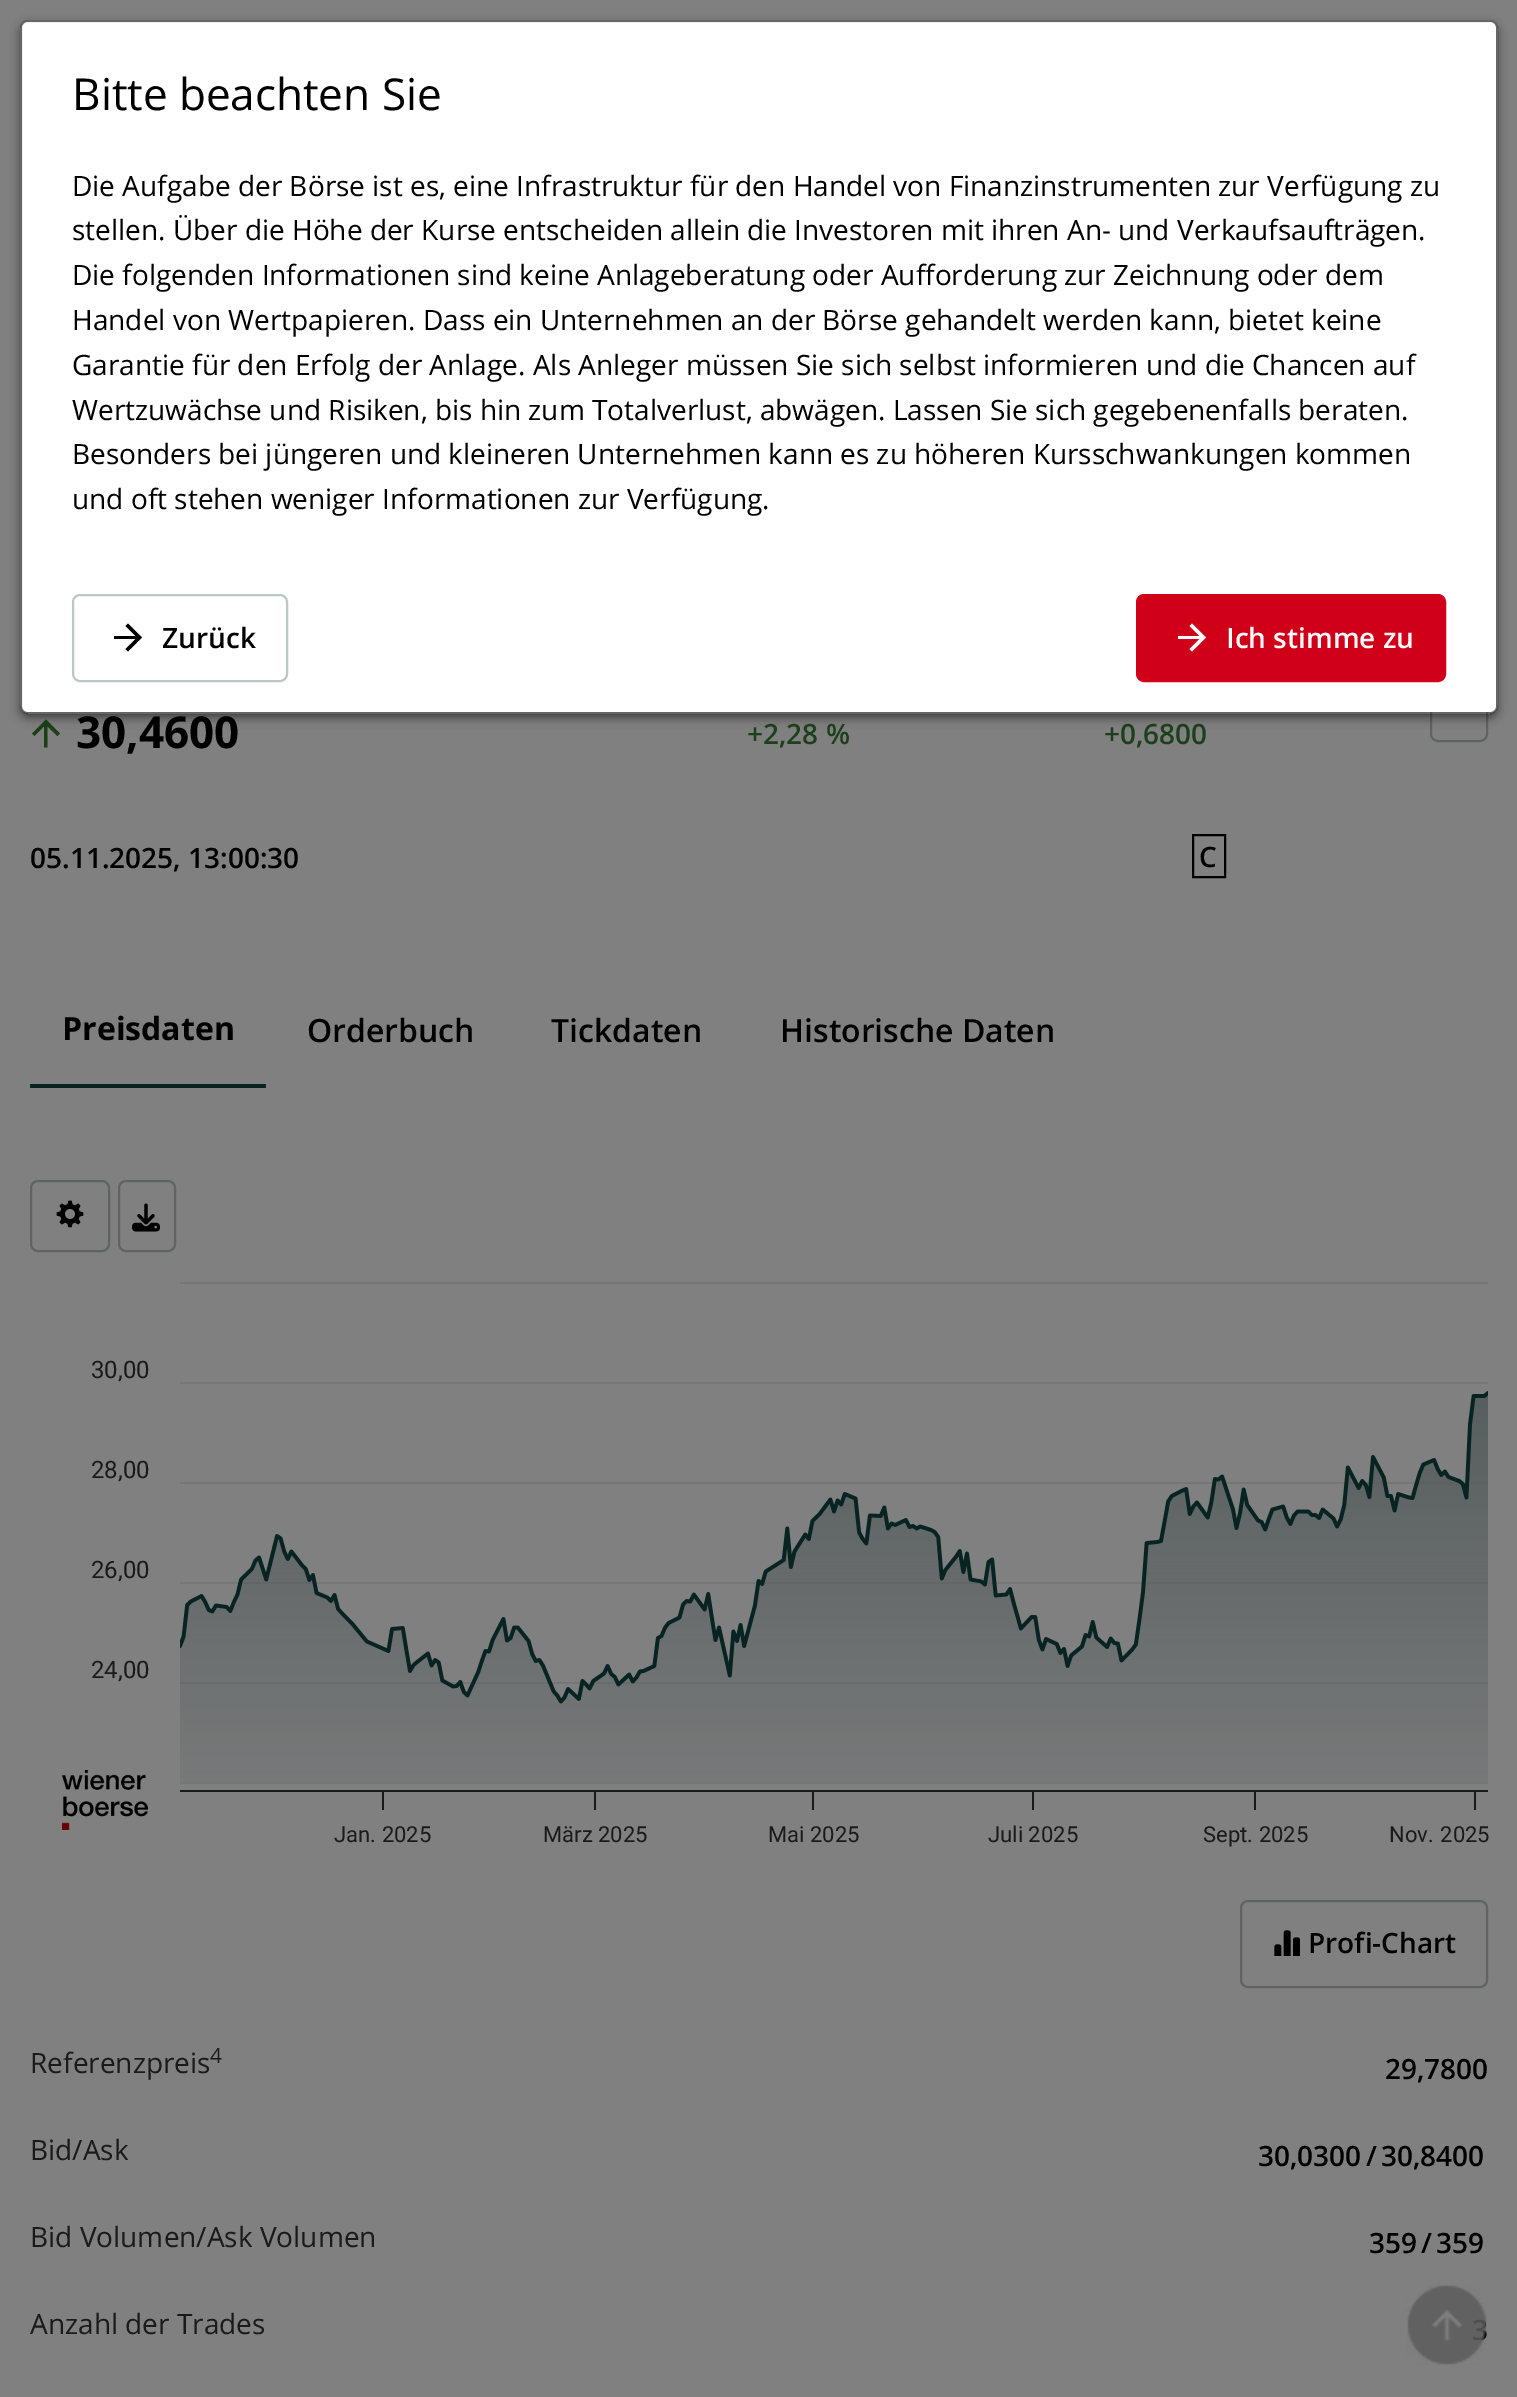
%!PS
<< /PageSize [1517 2397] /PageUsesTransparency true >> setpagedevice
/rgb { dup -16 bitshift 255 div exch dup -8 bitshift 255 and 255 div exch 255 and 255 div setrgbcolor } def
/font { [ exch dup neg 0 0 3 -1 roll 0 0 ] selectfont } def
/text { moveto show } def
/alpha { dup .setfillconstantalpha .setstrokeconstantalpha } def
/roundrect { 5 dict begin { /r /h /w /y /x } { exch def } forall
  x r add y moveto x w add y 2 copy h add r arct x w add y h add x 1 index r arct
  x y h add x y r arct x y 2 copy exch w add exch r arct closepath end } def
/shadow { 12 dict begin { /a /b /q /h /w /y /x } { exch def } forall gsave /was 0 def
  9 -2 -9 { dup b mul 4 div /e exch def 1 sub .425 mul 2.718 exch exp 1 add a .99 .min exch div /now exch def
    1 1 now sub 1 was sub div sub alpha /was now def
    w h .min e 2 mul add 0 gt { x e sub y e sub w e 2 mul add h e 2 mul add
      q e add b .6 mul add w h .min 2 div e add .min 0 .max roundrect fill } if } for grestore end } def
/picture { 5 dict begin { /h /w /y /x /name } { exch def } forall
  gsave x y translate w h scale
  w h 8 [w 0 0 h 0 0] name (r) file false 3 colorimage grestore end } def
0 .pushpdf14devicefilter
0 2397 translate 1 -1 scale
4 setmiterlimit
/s1 { /OpenSans-Regular 44 font 16#000000 rgb } def
/s2 { /OpenSans-Regular 28 font 16#000000 rgb } def
/s3 { /OpenSans-SemiBold 28 font 16#000000 rgb } def
/s4 { /OpenSans-SemiBold 28 font 16#FFFFFF rgb } def
/s5 { /OpenSans-Bold 44 font 16#000000 rgb } def
/s6 { /OpenSans-SemiBold 28 font 16#1B401B rgb } def
/s7 { /OpenSans-Bold 32 font 16#000000 rgb } def
/s8 { /OpenSans-SemiBold 32 font 16#000000 rgb } def
/s9 { /Roboto-Regular 24 font 16#1A1A1A rgb } def
/s10 { /Roboto-Regular 22 font 16#1A1A1A rgb } def
/s11 { /OpenSans-Regular 28 font 16#1A1A1A rgb } def
/s12 { /OpenSans-Regular 21 font 16#1A1A1A rgb } def
16#808080 rgb
0 0 1517 2397 rectfill
16#5E6464 rgb
2 setlinewidth
1431 671 56 70 7 roundrect stroke
16#1B4016 rgb
32 733.5 moveto 46 719.5 lineto 60 733.5 lineto 57.5 736 lineto 47.5 726.5 lineto 47.5 747.5 lineto 44 747.5 lineto 44 726.5 lineto 34.5 736 lineto closepath fill
gsave
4 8 moveto 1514 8 lineto 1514 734 lineto 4 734 lineto closepath 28 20 moveto 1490 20 lineto 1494.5 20 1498 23.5 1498 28 curveto 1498 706 lineto 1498 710.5 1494.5 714 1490 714 curveto 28 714 lineto 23.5 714 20 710.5 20 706 curveto 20 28 lineto 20 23.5 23.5 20 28 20 curveto closepath eoclip newpath
16#000000 rgb
20 24 1478 694 8 5 0.5 shadow
grestore
16#FFFFFF rgb
22 22 1474 690 6 roundrect fill
0.2 alpha
16#000000 rgb
21 21 1476 692 7 roundrect stroke
1 alpha
s1
(Bitte beachten Sie) 72 110 text
s2
(Die Aufgabe der Börse ist es, eine Infrastruktur für den Handel von Finanzinstrumenten zur Verfügung zu) 72 196 text
(stellen. Über die Höhe der Kurse entscheiden allein die Investoren mit ihren An- und Verkaufsaufträgen.) 72 240 text
(Die folgenden Informationen sind keine Anlageberatung oder Aufforderung zur Zeichnung oder dem) 72 285 text
(Handel von Wertpapieren. Dass ein Unternehmen an der Börse gehandelt werden kann, bietet keine) 72 330 text
(Garantie für den Erfolg der Anlage. Als Anleger müssen Sie sich selbst informieren und die Chancen auf) 72 375 text
(Wertzuwächse und Risiken, bis hin zum Totalverlust, abwägen. Lassen Sie sich gegebenenfalls beraten.) 72 420 text
(Besonders bei jüngeren und kleineren Unternehmen kann es zu höheren Kursschwankungen kommen) 72 464 text
(und oft stehen weniger Informationen zur Verfügung.) 72 509 text
16#BCC7C7 rgb
73 595 214 86 7 roundrect stroke
16#000000 rgb
128 623.5 moveto 142 637.5 lineto 128 651.5 lineto 125.5 649 lineto 135.5 639 lineto 114 639 lineto 114 636 lineto 135.5 636 lineto 125.5 626 lineto closepath fill
s3
(Zurück) 162 648 text
16#D10019 rgb
1137 595 308 86 7 roundrect gsave fill grestore
stroke
16#FFFFFF rgb
1192 623.5 moveto 1206 637.5 lineto 1192 651.5 lineto 1189.5 649 lineto 1199.5 639 lineto 1178 639 lineto 1178 636 lineto 1199.5 636 lineto 1189.5 626 lineto closepath fill
(Ich stimme zu) 1226 648 text
s5
(30,4600) 76 748 text
s6
(+2,28 %) 747 744 text
(+0,6800) 1104 744 text
s3
(05.11.2025, 13:00:30) 30 868 text
1193 835 32 42 rectstroke
(C) 1199 867 text
16#082422 rgb
30 1084 236 4 rectfill
s7
(Preisdaten) 62 1040 text
s8
(Orderbuch) 307 1042 text
(Tickdaten) 551 1042 text
(Historische Daten) 780 1042 text
16#5E6464 rgb
31 1181 78 70 7 roundrect stroke
(pic1.raw) 56 1200 28 28 picture
119 1181 56 70 7 roundrect stroke
(pic2.raw) 132 1203 28 29 picture
s9
(30,00) 91 1378 text
(pic3.raw) 180 1282 1308 528 picture
(28,00) 91 1478 text
(26,00) 91 1578 text
(24,00) 91 1678 text
s10
(Jan. 2025) 334 1842 text
(März 2025) 543 1842 text
(Mai 2025) 768 1842 text
(Juli 2025) 988 1842 text
(Sept. 2025) 1203 1842 text
1389 1842 moveto 1 0 32 (Nov. 2025) widthshow
(pic4.raw) 62 1770 86 60 picture
16#5E6464 rgb
1241 1901 246 86 7 roundrect stroke
(pic5.raw) 1274 1930 26 26 picture
s3
(Profi-Chart) 1308 1953 text
s11
(Referenzpreis) 30 2073 text
s12
(4) 210 2063 text
s3
(29,7800) 1385 2079 text
s11
(Bid/Ask) 30 2160 text
s3
(30,0300) 1258 2166 text
(/) 1366 2166 text
(30,8400) 1381 2166 text
s11
(Bid Volumen/Ask Volumen) 30 2247 text
s3
(359) 1369 2253 text
(/) 1421 2253 text
(359) 1436 2253 text
s11
(Anzahl der Trades) 30 2334 text
(pic6.raw) 1405 2285 82 80 picture
.poppdf14devicefilter showpage
